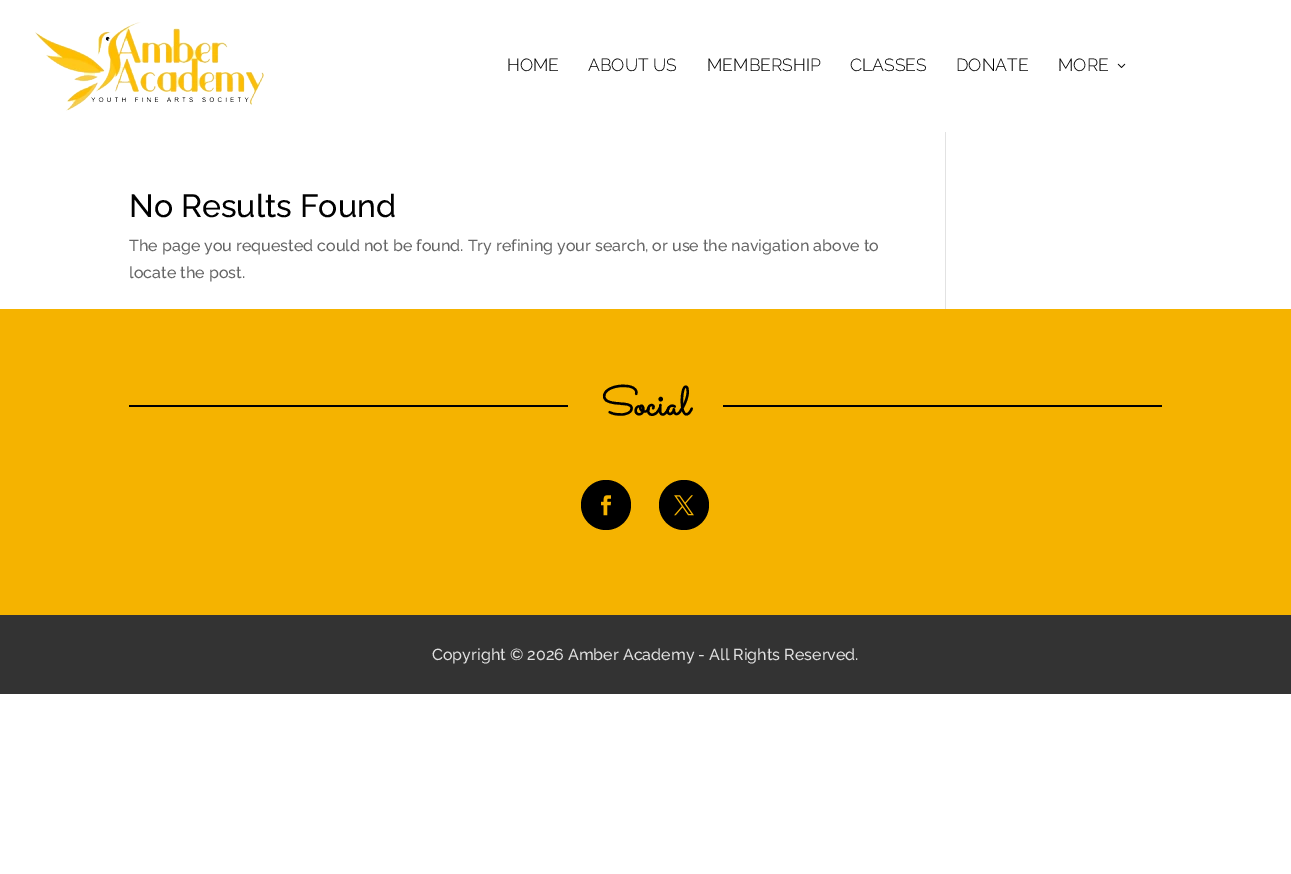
%!PS
<< /PageSize [1291 874] >> setpagedevice
/rgb { dup -16 bitshift 255 div exch dup -8 bitshift 255 and 255 div exch 255 and 255 div setrgbcolor } def
/font { [ exch dup neg 0 0 3 -1 roll 0 0 ] selectfont } def
/text { moveto show } def
/circle { newpath 0 360 arc closepath } def
/picture { 5 dict begin { /h /w /y /x /name } { exch def } forall
  gsave x y translate w h scale
  w h 8 [w 0 0 h 0 0] name (r) file false 3 colorimage grestore end } def
0 874 translate 1 -1 scale
4 setmiterlimit
/s1 { /Raleway-Light 17.5 font 16#000000 rgb } def
/s2 { /Raleway-Medium 32 font 16#000000 rgb } def
/s3 { /Raleway-Medium 16 font 16#666666 rgb } def
/s4 { /Sacramento-Bold 40 font 16#000000 rgb } def
/s5 { /Raleway-Medium 16 font 16#E0E0E0 rgb } def
16#FFFFFF rgb
0 0 1291 874 rectfill
(pic1.raw) 35 22 229 89 picture
s1
(HOME) 507 71 text
(ABOUT US) 588 71 text
(MEMBERSHIP) 707 71 text
(CLASSES) 850 71 text
(DONATE) 956 71 text
(MORE) 1058 71 text
(pic2.raw) 1117 63 9 5 picture
s2
(No Results Found) 129 217 text
s3
(The page you requested could not be found. Try refining your search, or use the navigation above to) 129 251 text
(locate the post.) 129 278 text
16#E2E2E2 rgb
945 132 1 177 rectfill
16#F5B300 rgb
0 309 1291 306 rectfill
16#000000 rgb
129 405 1033 2 rectfill
16#F5B300 rgb
568 405 155 2 rectfill
s4
(Social) 601 415 text
606 505 25 circle fill
(pic3.raw) 601 495 10 21 picture
684 505 25 circle fill
(pic4.raw) 674 495 20 21 picture
16#333333 rgb
0 615 1291 79 rectfill
s5
(Copyright © 2026 Amber Academy - All Rights Reserved.) 432 660 text
showpage
